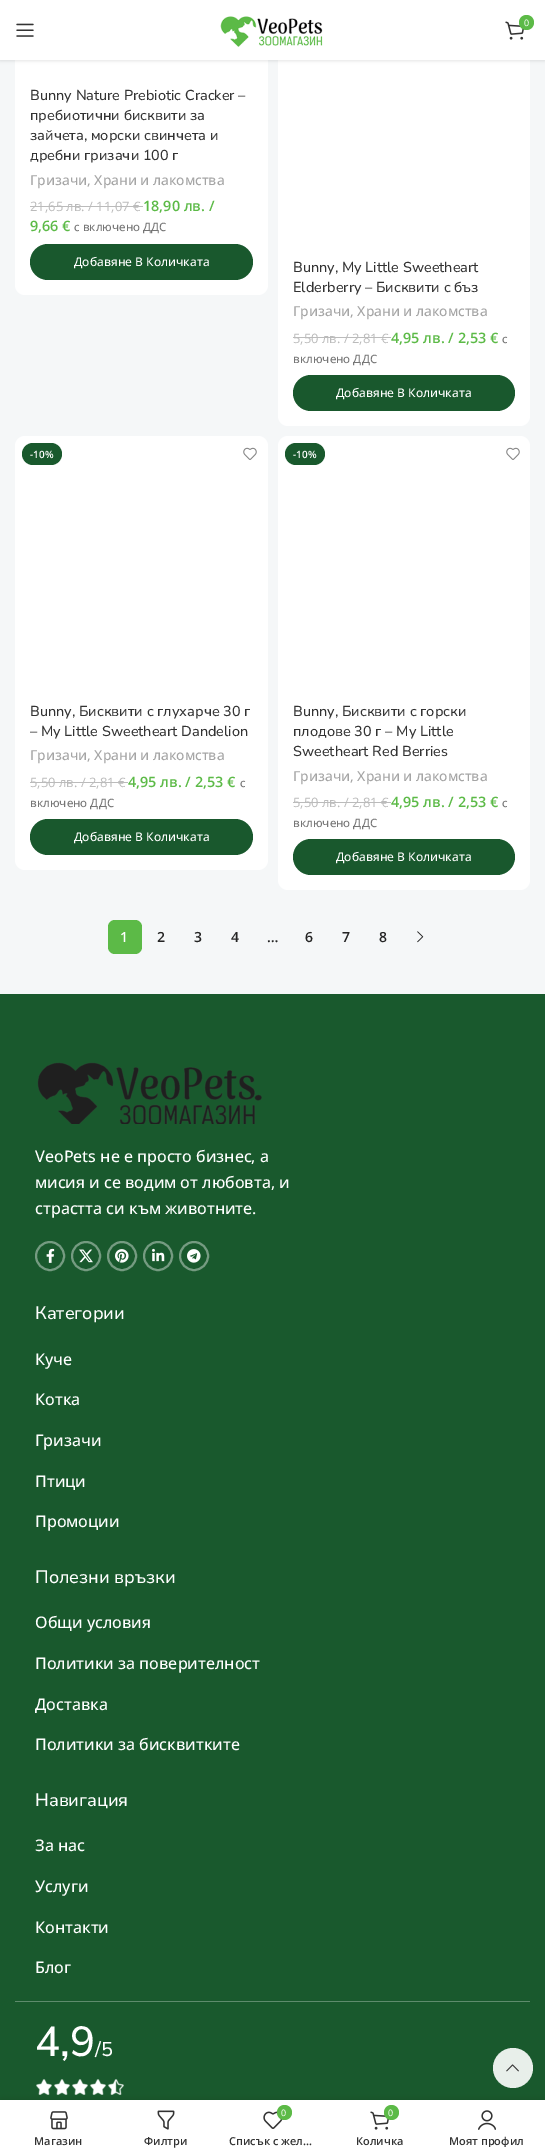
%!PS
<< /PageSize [545 2155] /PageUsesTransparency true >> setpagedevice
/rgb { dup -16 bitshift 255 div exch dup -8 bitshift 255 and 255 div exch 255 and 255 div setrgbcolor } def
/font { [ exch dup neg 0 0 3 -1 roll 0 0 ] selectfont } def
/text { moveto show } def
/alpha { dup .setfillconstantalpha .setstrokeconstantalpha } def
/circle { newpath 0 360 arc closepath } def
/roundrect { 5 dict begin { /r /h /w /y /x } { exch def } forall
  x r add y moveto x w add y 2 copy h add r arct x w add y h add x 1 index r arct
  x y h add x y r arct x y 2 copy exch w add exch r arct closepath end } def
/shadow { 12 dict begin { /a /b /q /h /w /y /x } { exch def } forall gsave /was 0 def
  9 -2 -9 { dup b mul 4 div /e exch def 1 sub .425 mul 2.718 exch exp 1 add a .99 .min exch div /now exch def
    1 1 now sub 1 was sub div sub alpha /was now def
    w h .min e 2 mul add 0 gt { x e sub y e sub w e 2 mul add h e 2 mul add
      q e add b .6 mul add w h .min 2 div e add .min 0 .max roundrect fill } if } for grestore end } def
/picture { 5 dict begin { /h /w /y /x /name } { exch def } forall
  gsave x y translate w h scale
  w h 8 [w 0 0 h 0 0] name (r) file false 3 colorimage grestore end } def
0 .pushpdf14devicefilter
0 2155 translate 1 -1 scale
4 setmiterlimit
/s1 { /OpenSans-Regular 9 font 16#FFFFFF rgb } def
/s2 { /NunitoSans-Medium 14.4 font 16#333333 rgb } def
/s3 { /OpenSans-Medium 13.75 font 16#A5A5A5 rgb } def
/s4 { /OpenSans-Regular 13 font 16#BBBBBB rgb } def
/s5 { /OpenSans-SemiBold 14.4 font 16#5CBA47 rgb } def
/s6 { /OpenSans-Medium 11.5 font 16#767676 rgb } def
/s7 { /OpenSans-Medium 12 font 16#FFFFFF rgb } def
/s8 { /OpenSans-SemiBold 10 font 16#FFFFFF rgb } def
/s9 { /OpenSans-SemiBold 14 font 16#FFFFFF rgb } def
/s10 { /OpenSans-SemiBold 14 font 16#242424 rgb } def
/s11 { /OpenSans-Medium 16 font 16#FFFFFF rgb } def
/s12 { /NunitoSans-Medium 18 font 16#FFFFFF rgb } def
/s13 { /NunitoSans-Medium 42 font 16#FFFFFF rgb } def
/s14 { /NunitoSans-Medium 20 font 16#FFFFFF rgb } def
/s15 { /OpenSans-SemiBold 11 font 16#333333 rgb } def
16#F5F7F8 rgb
0 0 545 2155 rectfill
16#FFFFFF rgb
15 -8 253 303 10 roundrect fill
278 -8 252 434 10 roundrect fill
16#000000 rgb
0 1 545 60 0 1.5 0.1 shadow
16#FFFFFF rgb
0 0 545 60 rectfill
(pic1.raw) 16 23 18 14 picture
(pic2.raw) 220 16 103 31 picture
(pic3.raw) 505 21 19 19 picture
16#5CBA47 rgb
526.5 22.5 7.5 circle fill
s1
(0) 524 26 text
s2
(Bunny Nature Prebiotic Cracker –) 30 100 text
(пребиотични бисквити за) 30 120 text
(зайчета, морски свинчета и) 30 140 text
(дребни гризачи 100 г) 30 160 text
s3
(Гризачи, Храни и лакомства) 30 185 text
s4
(21,65 лв. / 11,07 €) 30 211 text
30 206 113 1 rectfill
s5
(18,90 лв. /) 143 211 text
(9,66 €) 30 231 text
s6
(с включено ДДС) 74 231 text
16#19582D rgb
30 244 223 36 18 roundrect fill
s7
(Добавяне В Количката) 74 266 text
s2
(Bunny, My Little Sweetheart) 293 272 text
(Elderberry – Бисквити с бъз) 293 292 text
s3
(Гризачи, Храни и лакомства) 293 316 text
s4
(5,50 лв. / 2,81 €) 293 343 text
293 337 98 1 rectfill
s5
(4,95 лв. / 2,53 €) 391 343 text
s6
(с) 502 343 text
(включено ДДС) 293 363 text
16#19582D rgb
293 375 222 36 18 roundrect fill
s7
(Добавяне В Количката) 336 397 text
15 436 253 434 10 roundrect fill
16#19592D rgb
22 443 40 22 11 roundrect fill
s8
(-10%) 30 458 text
(pic4.raw) 243 447 14 13 picture
s2
(Bunny, Бисквити с глухарче 30 г) 30 716 text
(– My Little Sweetheart Dandelion) 30 736 text
s3
(Гризачи, Храни и лакомства) 30 760 text
s4
(5,50 лв. / 2,81 €) 30 787 text
30 782 98 1 rectfill
s5
(4,95 лв. / 2,53 €) 128 787 text
s6
(с) 240 787 text
(включено ДДС) 30 807 text
16#19582D rgb
30 819 223 36 18 roundrect fill
s7
(Добавяне В Количката) 74 841 text
278 436 252 454 10 roundrect fill
16#19592D rgb
285 443 40 22 11 roundrect fill
s8
(-10%) 293 458 text
(pic4.raw) 506 447 14 13 picture
s2
(Bunny, Бисквити с горски) 293 716 text
(плодове 30 г – My Little) 293 736 text
(Sweetheart Red Berries) 293 756 text
s3
(Гризачи, Храни и лакомства) 293 781 text
s4
(5,50 лв. / 2,81 €) 293 807 text
293 802 98 1 rectfill
s5
(4,95 лв. / 2,53 €) 391 807 text
s6
(с) 502 807 text
(включено ДДС) 293 827 text
16#19582D rgb
293 839 222 36 18 roundrect fill
s7
(Добавяне В Количката) 336 861 text
16#5CBA47 rgb
108 920 34 34 7 roundrect fill
s9
(1) 120 942 text
s10
(2) 157 942 text
(3) 194 942 text
(4) 231 942 text
(…) 267 942 text
(6) 305 942 text
(7) 342 942 text
(8) 379 942 text
(pic5.raw) 417 931 7 12 picture
16#19592D rgb
0 994 545 1106 rectfill
(pic6.raw) 37 1062 225 62 picture
s11
(VeoPets не е просто бизнес, а) 35 1162 text
(мисия и се водим от любовта, и) 35 1188 text
(страстта си към животните.) 35 1214 text
16#759B81 rgb
2 setlinewidth
50 1256 14 circle stroke
(pic7.raw) 46 1248 9 15 picture
86 1256 14 circle stroke
(pic8.raw) 79 1249 14 14 picture
122 1256 14 circle stroke
(pic9.raw) 115 1249 14 14 picture
158 1256 14 circle stroke
(pic10.raw) 152 1248 13 14 picture
194 1256 14 circle stroke
(pic11.raw) 187 1249 14 14 picture
s12
(Категории) 35 1319 text
s11
(Куче) 35 1365 text
(Котка) 35 1405 text
(Гризачи) 35 1446 text
(Птици) 35 1487 text
(Промоции) 35 1527 text
s12
(Полезни връзки) 35 1583 text
s11
(Общи условия) 35 1628 text
(Политики за поверителност) 35 1669 text
(Доставка) 35 1710 text
(Политики за бисквитките) 35 1750 text
s12
(Навигация) 35 1806 text
s11
(За нас) 35 1851 text
(Услуги) 35 1892 text
(Контакти) 35 1933 text
(Блог) 35 1973 text
16#5E8B6C rgb
15 2001 515 1 rectfill
s13
(4,9) 35 2056 text
s14
(/5) 95 2056 text
(pic12.raw) 36 2079 88 16 picture
0.9 alpha
513 2068 20 circle fill
1 alpha
(pic13.raw) 506 2064 13 8 picture
16#000000 rgb
0 2100 545 55 0 4.5 0.12 shadow
16#FFFFFF rgb
0 2100 545 55 rectfill
(pic14.raw) 50 2111 18 19 picture
s15
(Магазин) 34 2145 text
(pic15.raw) 157 2110 18 20 picture
(Филтри) 144 2145 text
(pic16.raw) 263 2111 20 18 picture
16#5CBA47 rgb
284.5 2112.5 7.5 circle fill
s1
(0) 281 2116 text
s15
(Списък с жел…) 229 2145 text
(pic3.raw) 370 2111 19 19 picture
16#5CBA47 rgb
391.5 2112.5 7.5 circle fill
s1
(0) 388 2116 text
s15
(Количка) 356 2145 text
(pic17.raw) 478 2110 18 20 picture
gsave
443 2134 87 13 rectclip
(Моят профил) 449 2145 text
grestore
.poppdf14devicefilter showpage
